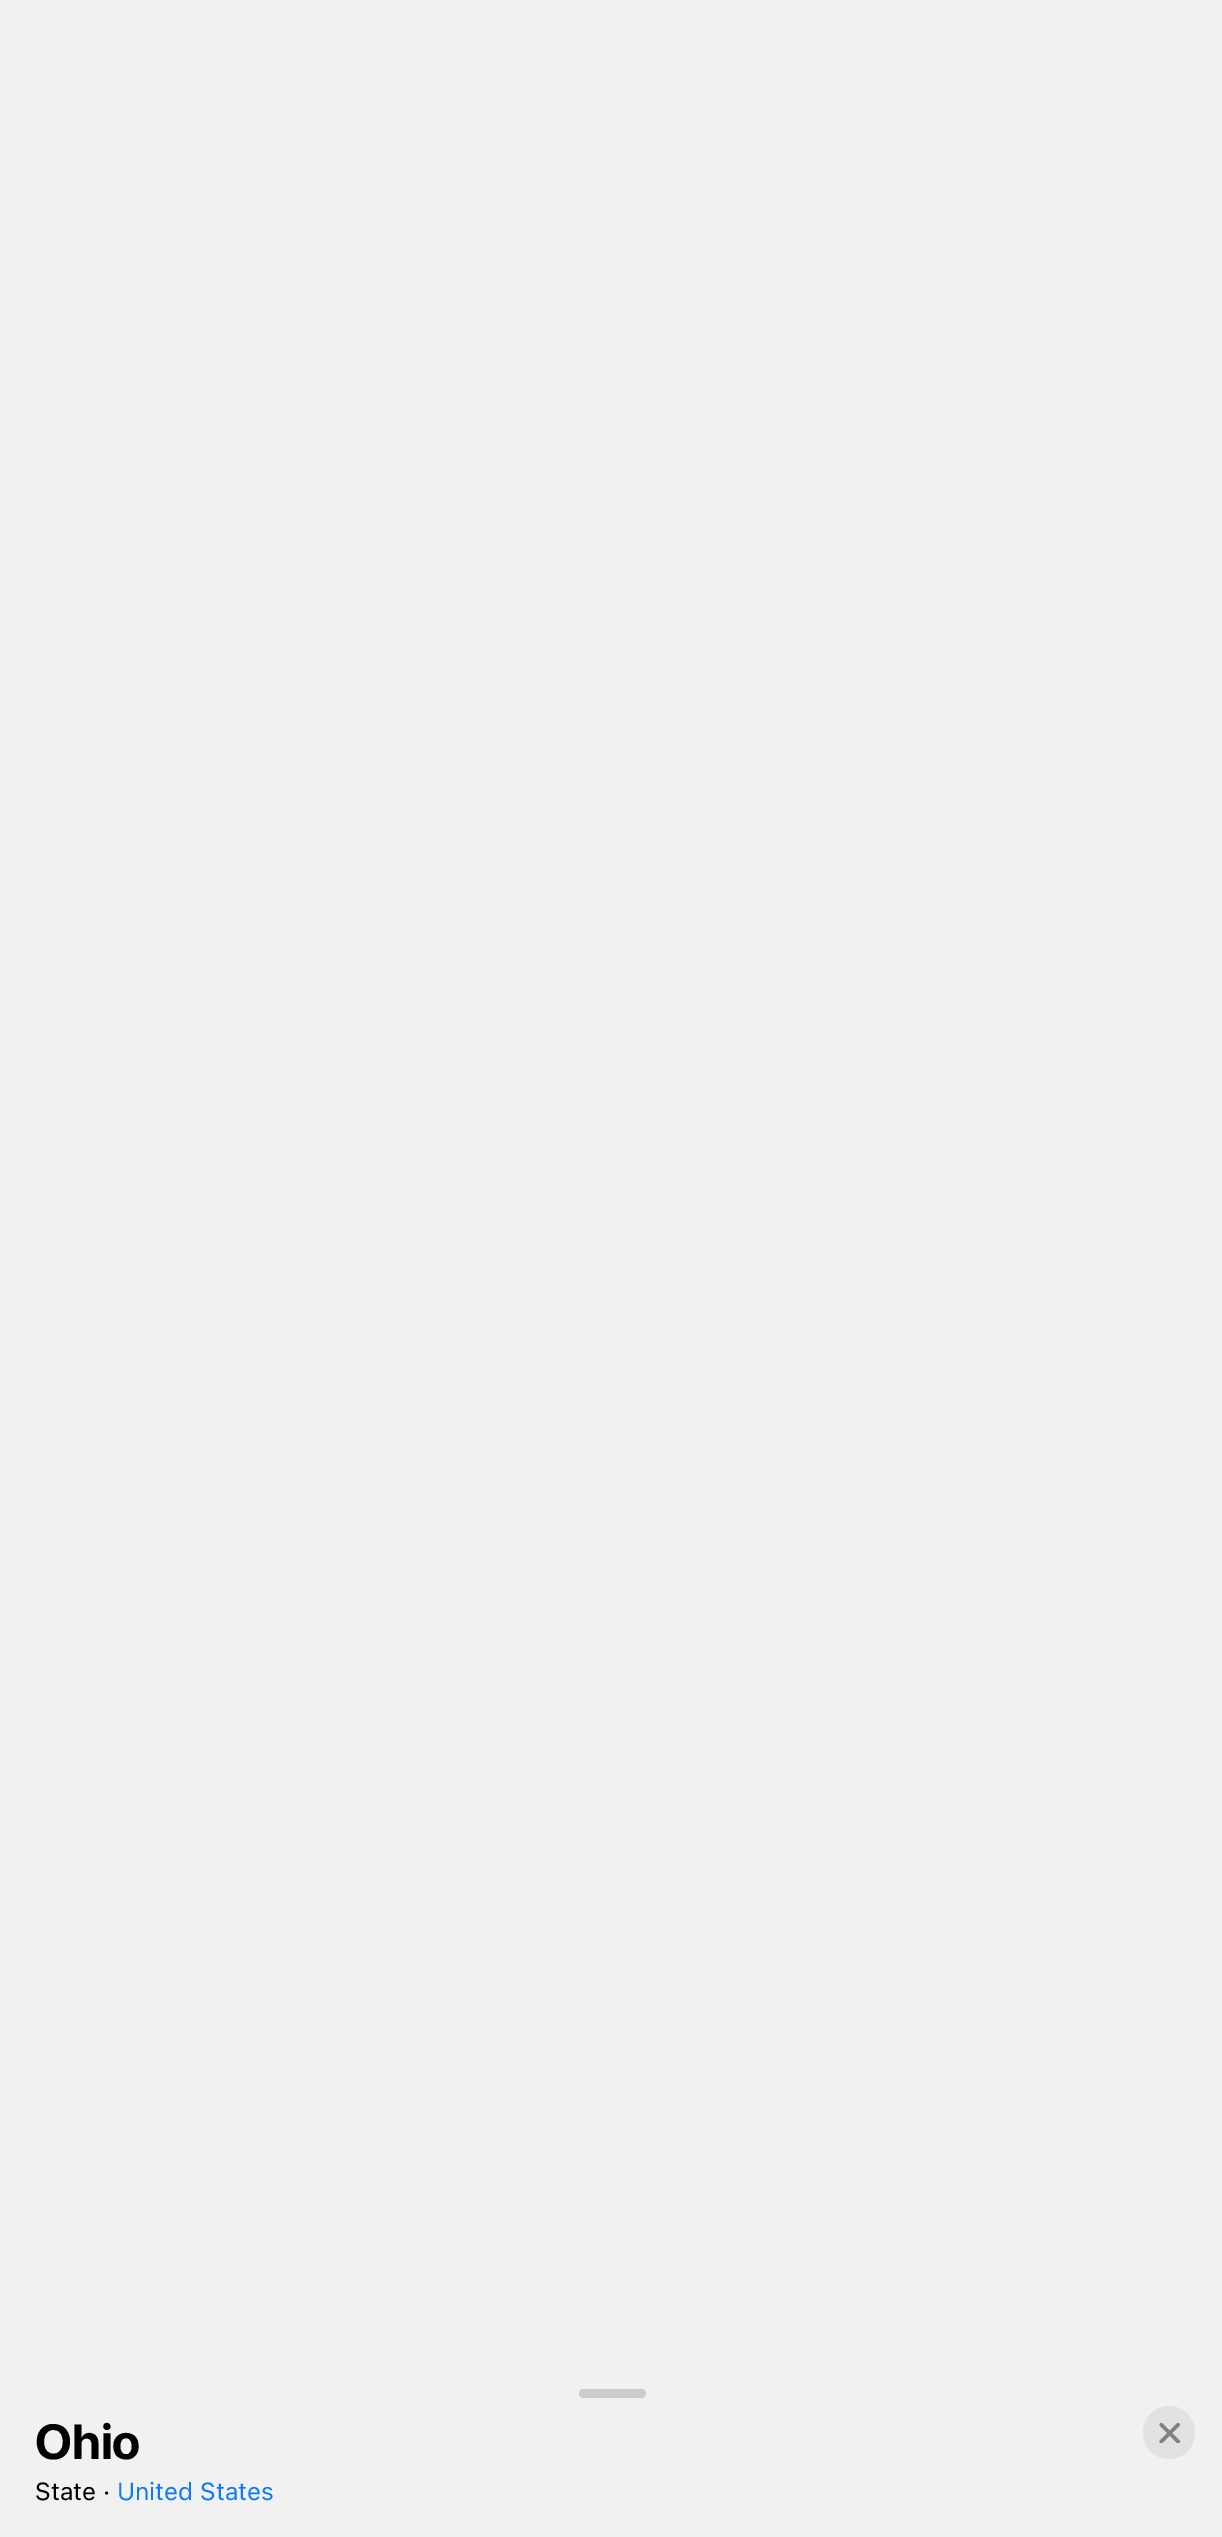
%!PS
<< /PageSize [1222 2537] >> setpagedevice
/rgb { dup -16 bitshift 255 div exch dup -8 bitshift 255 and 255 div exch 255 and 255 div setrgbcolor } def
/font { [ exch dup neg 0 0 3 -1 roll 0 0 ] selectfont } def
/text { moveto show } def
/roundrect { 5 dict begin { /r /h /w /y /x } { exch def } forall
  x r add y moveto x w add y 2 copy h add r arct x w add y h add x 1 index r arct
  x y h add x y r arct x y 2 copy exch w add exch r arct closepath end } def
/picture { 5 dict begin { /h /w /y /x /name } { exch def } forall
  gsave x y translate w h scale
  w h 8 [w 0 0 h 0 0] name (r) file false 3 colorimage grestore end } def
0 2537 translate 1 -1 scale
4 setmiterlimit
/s1 { /SF-Bold 49 font 16#000000 rgb } def
/s2 { /SF-Regular 24.5 font 16#000000 rgb } def
/s3 { /SF-Regular 24.5 font 16#0A7BFF rgb } def
16#F1F1F1 rgb
0 0 1222 2537 rectfill
16#CCCCCC rgb
579 2389 67 9 4.5 roundrect fill
s1
(Ohio) 35 2459 text
s2
(State ·) 35 2500 text
s3
(United States) 117 2500 text
16#E2E2E2 rgb
1143 2406 52 53 26 roundrect fill
(pic1.raw) 1159 2422 21 21 picture
showpage
